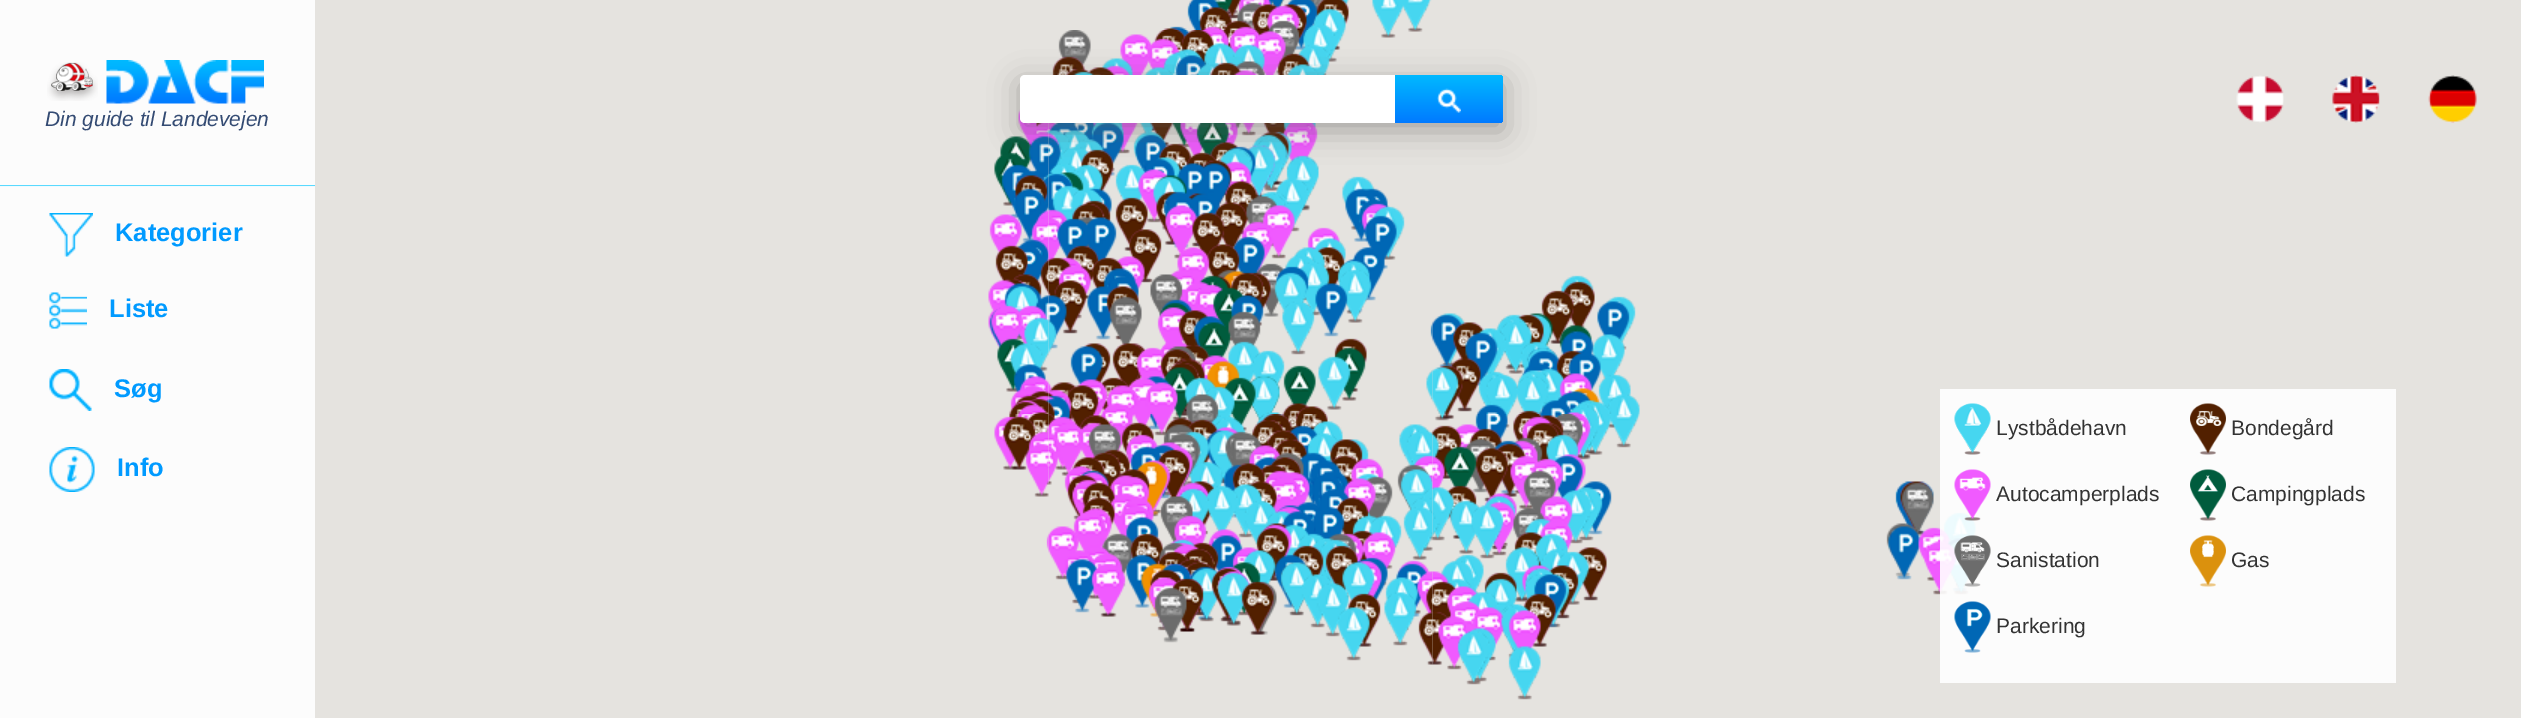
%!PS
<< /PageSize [2521 718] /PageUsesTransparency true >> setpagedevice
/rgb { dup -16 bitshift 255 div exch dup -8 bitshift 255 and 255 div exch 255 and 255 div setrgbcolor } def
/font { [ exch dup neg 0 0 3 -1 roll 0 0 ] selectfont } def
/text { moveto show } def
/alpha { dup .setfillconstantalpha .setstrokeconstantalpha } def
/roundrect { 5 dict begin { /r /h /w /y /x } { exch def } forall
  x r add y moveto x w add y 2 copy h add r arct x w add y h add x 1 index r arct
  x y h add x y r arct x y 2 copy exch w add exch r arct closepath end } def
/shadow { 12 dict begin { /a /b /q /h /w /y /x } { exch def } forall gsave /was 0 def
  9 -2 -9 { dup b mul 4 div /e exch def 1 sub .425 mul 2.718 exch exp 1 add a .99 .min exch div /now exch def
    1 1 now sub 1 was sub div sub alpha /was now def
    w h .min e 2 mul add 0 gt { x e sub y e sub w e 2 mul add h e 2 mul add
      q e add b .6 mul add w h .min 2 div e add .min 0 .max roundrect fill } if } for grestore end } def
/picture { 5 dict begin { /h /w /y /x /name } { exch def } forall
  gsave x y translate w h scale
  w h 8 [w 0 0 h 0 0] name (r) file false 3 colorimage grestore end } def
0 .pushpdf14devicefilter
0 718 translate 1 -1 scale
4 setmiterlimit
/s1 { /LiberationSans-Italic 21 font 16#344B73 rgb } def
/s2 { /LiberationSans-Bold 25.5 font 16#009AFF rgb } def
/s3 { /LiberationSans-Regular 21 font 16#333333 rgb } def
16#E5E3DF rgb
0 0 2521 718 rectfill
16#FCFCFC rgb
0 187 315 531 rectfill
(pic1.raw) 1163 0 269 30 picture
(pic2.raw) 988 109 61 305 picture
(pic3.raw) 1048 30 385 384 picture
(pic4.raw) 1432 275 208 139 picture
(pic6.raw) 1048 414 385 251 picture
(pic5.raw) 994 414 55 136 picture
(pic7.raw) 1432 414 208 286 picture
(pic8.raw) 1886 481 90 114 picture
0 0 315 185 rectfill
16#5AD9FE rgb
0 185 315 1 rectfill
16#EFFBFF rgb
0 186 315 1 rectfill
(pic9.raw) 47 62 51 39 picture
(pic10.raw) 106 60 158 44 picture
s1
(Din guide til Landevejen) 45 126 text
16#615D5C rgb
1020 83 483 48 0 15 0.48 shadow
16#FFFFFF rgb
1025 75 moveto 1395 75 lineto 1395 123 lineto 1025 123 lineto 1022 123 1020 121 1020 118 curveto 1020 80 lineto 1020 77 1022 75 1025 75 curveto closepath fill
gsave 1395 75 moveto 1498 75 lineto 1501 75 1503 77 1503 80 curveto 1503 118 lineto 1503 121 1501 123 1498 123 curveto 1395 123 lineto closepath clip newpath
<< /ShadingType 2 /ColorSpace /DeviceRGB /Coords [1449 75 1449 123] /Extend [true true] /Function << /FunctionType 2 /Domain [0 1] /C0 [0 0.725 1] /C1 [0 0.478 1] /N 1 >> >> shfill grestore
(pic11.raw) 1437 88 24 25 picture
(pic12.raw) 2236 75 48 48 picture
(pic13.raw) 2332 75 48 48 picture
(pic14.raw) 2428 75 49 48 picture
(pic15.raw) 49 213 44 44 picture
s2
(Kategorier) 115 241 text
(pic16.raw) 49 292 38 37 picture
(Liste) 109 317 text
(pic17.raw) 49 369 43 42 picture
(Søg) 114 397 text
(pic18.raw) 49 447 46 45 picture
(Info) 117 476 text
0.9 alpha
16#FFFFFF rgb
1940 389 456 294 rectfill
1 alpha
(pic19.raw) 1954 403 37 52 picture
s3
(Lystbådehavn) 1996 435 text
(pic20.raw) 1954 469 37 52 picture
(Autocamperplads) 1996 501 text
(pic21.raw) 1954 535 37 52 picture
(Sanistation) 1996 567 text
(pic22.raw) 1954 601 37 52 picture
(Parkering) 1996 633 text
(pic23.raw) 2190 403 36 52 picture
(Bondegård) 2231 435 text
(pic24.raw) 2190 469 36 52 picture
(Campingplads) 2231 501 text
(pic25.raw) 2190 535 36 52 picture
(Gas) 2231 567 text
.poppdf14devicefilter showpage
